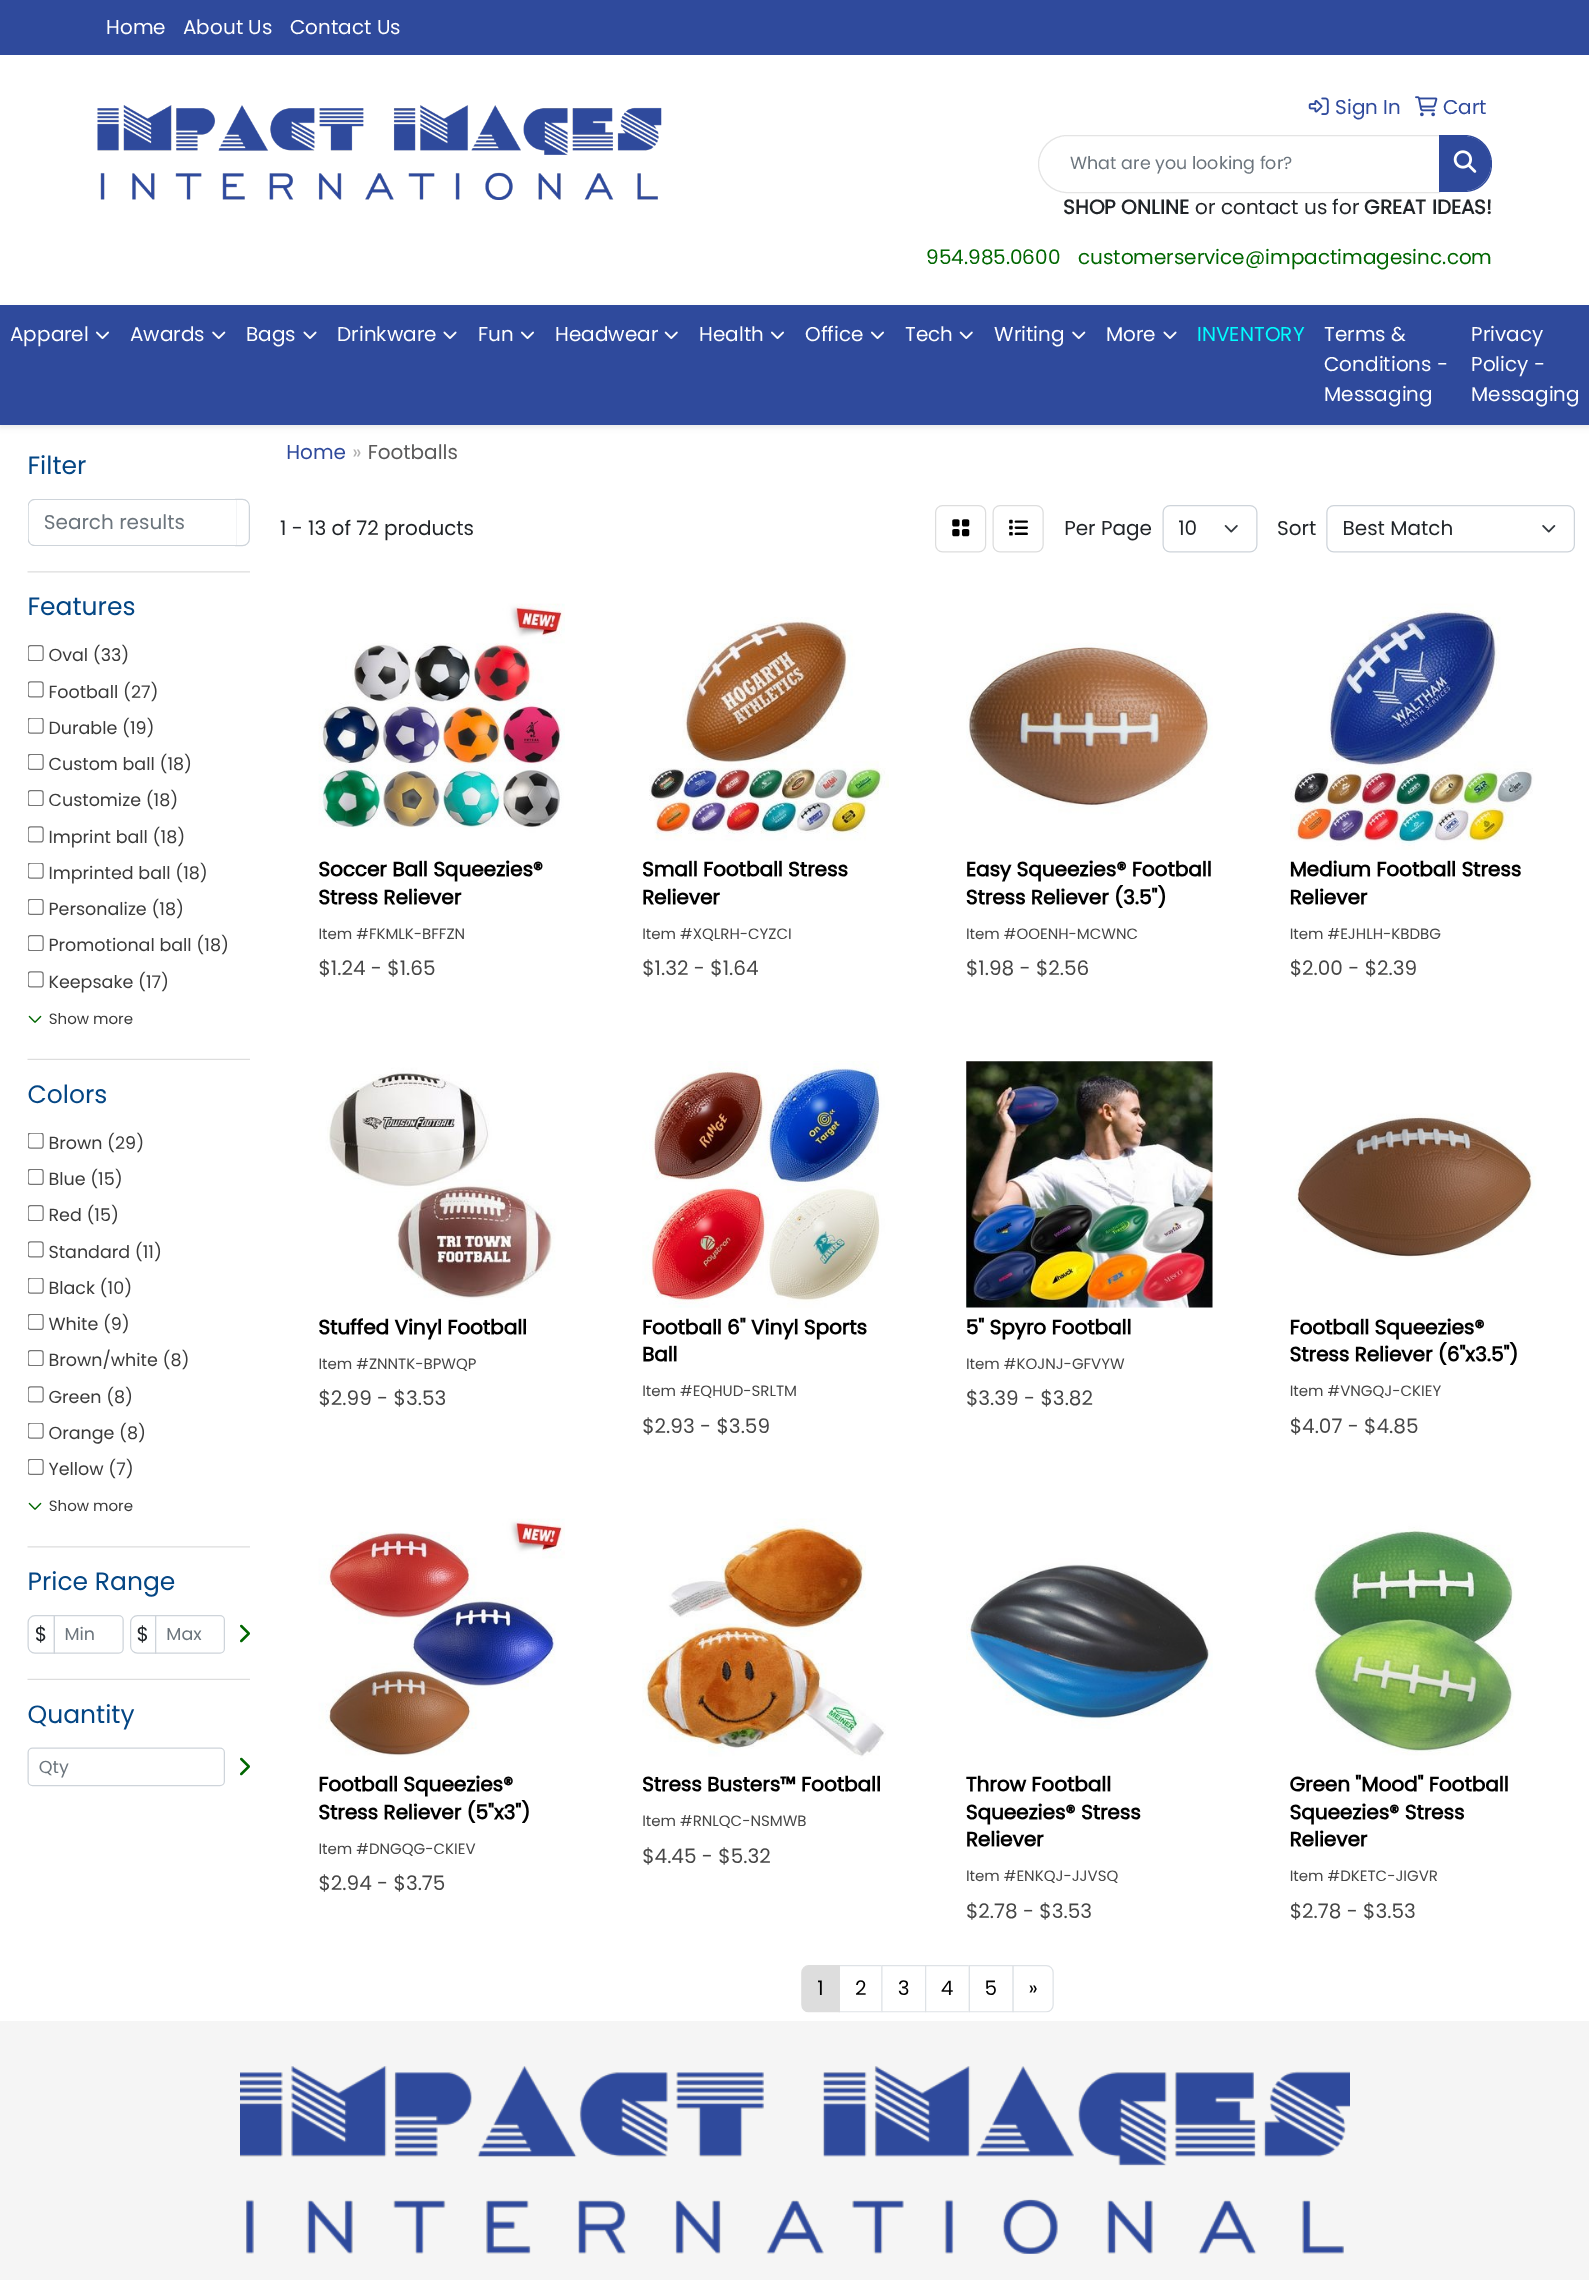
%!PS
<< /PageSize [1589 2280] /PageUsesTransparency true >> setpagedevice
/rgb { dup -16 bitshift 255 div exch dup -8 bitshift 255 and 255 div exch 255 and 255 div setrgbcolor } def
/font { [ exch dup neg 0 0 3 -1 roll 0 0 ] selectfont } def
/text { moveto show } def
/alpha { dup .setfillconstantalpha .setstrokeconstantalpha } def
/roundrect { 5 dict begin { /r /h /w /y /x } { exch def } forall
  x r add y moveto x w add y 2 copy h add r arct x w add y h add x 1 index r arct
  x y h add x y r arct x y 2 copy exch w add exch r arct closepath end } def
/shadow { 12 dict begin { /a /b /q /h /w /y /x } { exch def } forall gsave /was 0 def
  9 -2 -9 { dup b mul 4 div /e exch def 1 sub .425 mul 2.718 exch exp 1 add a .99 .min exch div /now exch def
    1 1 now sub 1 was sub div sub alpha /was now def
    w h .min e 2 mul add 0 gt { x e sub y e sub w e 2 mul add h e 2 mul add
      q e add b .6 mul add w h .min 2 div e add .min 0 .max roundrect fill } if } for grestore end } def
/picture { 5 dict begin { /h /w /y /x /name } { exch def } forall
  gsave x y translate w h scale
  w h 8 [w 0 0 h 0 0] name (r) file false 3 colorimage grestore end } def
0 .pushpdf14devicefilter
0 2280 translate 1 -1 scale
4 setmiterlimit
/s1 { /Poppins-Regular 20 font 16#FFFFFF rgb } def
/s2 { /Poppins-Regular 20 font 16#2F4A9C rgb } def
/s3 { /Poppins-Regular 17.5 font 16#6C757D rgb } def
/s4 { /Poppins-Bold 20 font 16#212529 rgb } def
/s5 { /Poppins-Regular 20 font 16#212529 rgb } def
/s6 { /Poppins-Regular 20 font 16#006600 rgb } def
/s7 { /Poppins-Regular 20 font 16#00FFFF rgb } def
16#FFFFFF rgb
0 0 1589 2280 rectfill
16#2F4A9C rgb
0 0 1589 55 rectfill
s1
(Home) 106 34 text
(About Us) 183 34 text
(Contact Us) 290 34 text
(pic1.raw) 97 105 565 95 picture
(pic2.raw) 1308 97 21 18 picture
s2
(Sign In) 1335 114 text
(pic3.raw) 1415 96 23 21 picture
(Cart) 1443 114 text
16#E4E4E4 rgb
1067 135.5 moveto 1439.5 135.5 lineto 1439.5 192.5 lineto 1067 192.5 lineto 1051.5 192.5 1038.5 179.5 1038.5 164 curveto 1038.5 148.5 1051.5 135.5 1067 135.5 curveto closepath stroke
s3
(What are you looking for?) 1070 169 text
16#2F4A9C rgb
1439 136 moveto 1463.5 136 lineto 1478.5 136 1491 148.5 1491 163.5 curveto 1491 178.5 1478.5 191 1463.5 191 curveto 1439 191 lineto closepath fill
1439 135 moveto 1464 135 lineto 1480 135 1492 148 1492 164 curveto 1492 180 1480 192 1464 192 curveto 1439 192 lineto closepath 1439 136 moveto 1464 136 lineto 1479 136 1491 149 1491 164 curveto 1491 179 1479 191 1464 191 curveto 1439 191 lineto closepath eofill
(pic4.raw) 1453 150 24 23 picture
s4
(SHOP ONLINE) 1063 214 text
s5
(or contact us for) 1195 214 text
s4
(GREAT IDEAS!) 1364 214 text
s6
(954.985.0600) 926 264 text
(customerservice@impactimagesinc.com) 1078 264 text
16#000000 rgb
0 308 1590 120 0 2.5 0.07 shadow
16#2F4A9C rgb
0 305 1589 120 rectfill
s1
(Apparel) 10 341 text
(pic5.raw) 96 331 13 8 picture
(Awards) 130 341 text
(pic6.raw) 212 331 14 8 picture
(Bags) 246 341 text
(pic7.raw) 303 331 14 8 picture
(Drinkware) 337 341 text
(pic7.raw) 443 331 14 8 picture
(Fun) 478 341 text
(pic5.raw) 521 331 13 8 picture
(Headwear) 555 341 text
(pic8.raw) 664 331 14 8 picture
(Health) 699 341 text
(pic5.raw) 771 331 13 8 picture
(Office) 805 341 text
(pic5.raw) 871 331 13 8 picture
(Tech) 905 341 text
(pic8.raw) 959 331 14 8 picture
(Writing) 994 341 text
(pic6.raw) 1072 331 14 8 picture
(More) 1106 341 text
(pic7.raw) 1163 331 14 8 picture
s7
(INVENTORY) 1197 341 text
s1
(Terms &) 1324 341 text
(Conditions -) 1324 371 text
(Messaging) 1324 401 text
(Privacy) 1471 341 text
(Policy -) 1471 371 text
(Messaging) 1471 401 text
(pic9.raw) 27 444 1548 1569 picture
16#F5F5F5 rgb
0 2021 1589 259 rectfill
(pic10.raw) 240 2066 1110 188 picture
.poppdf14devicefilter showpage
